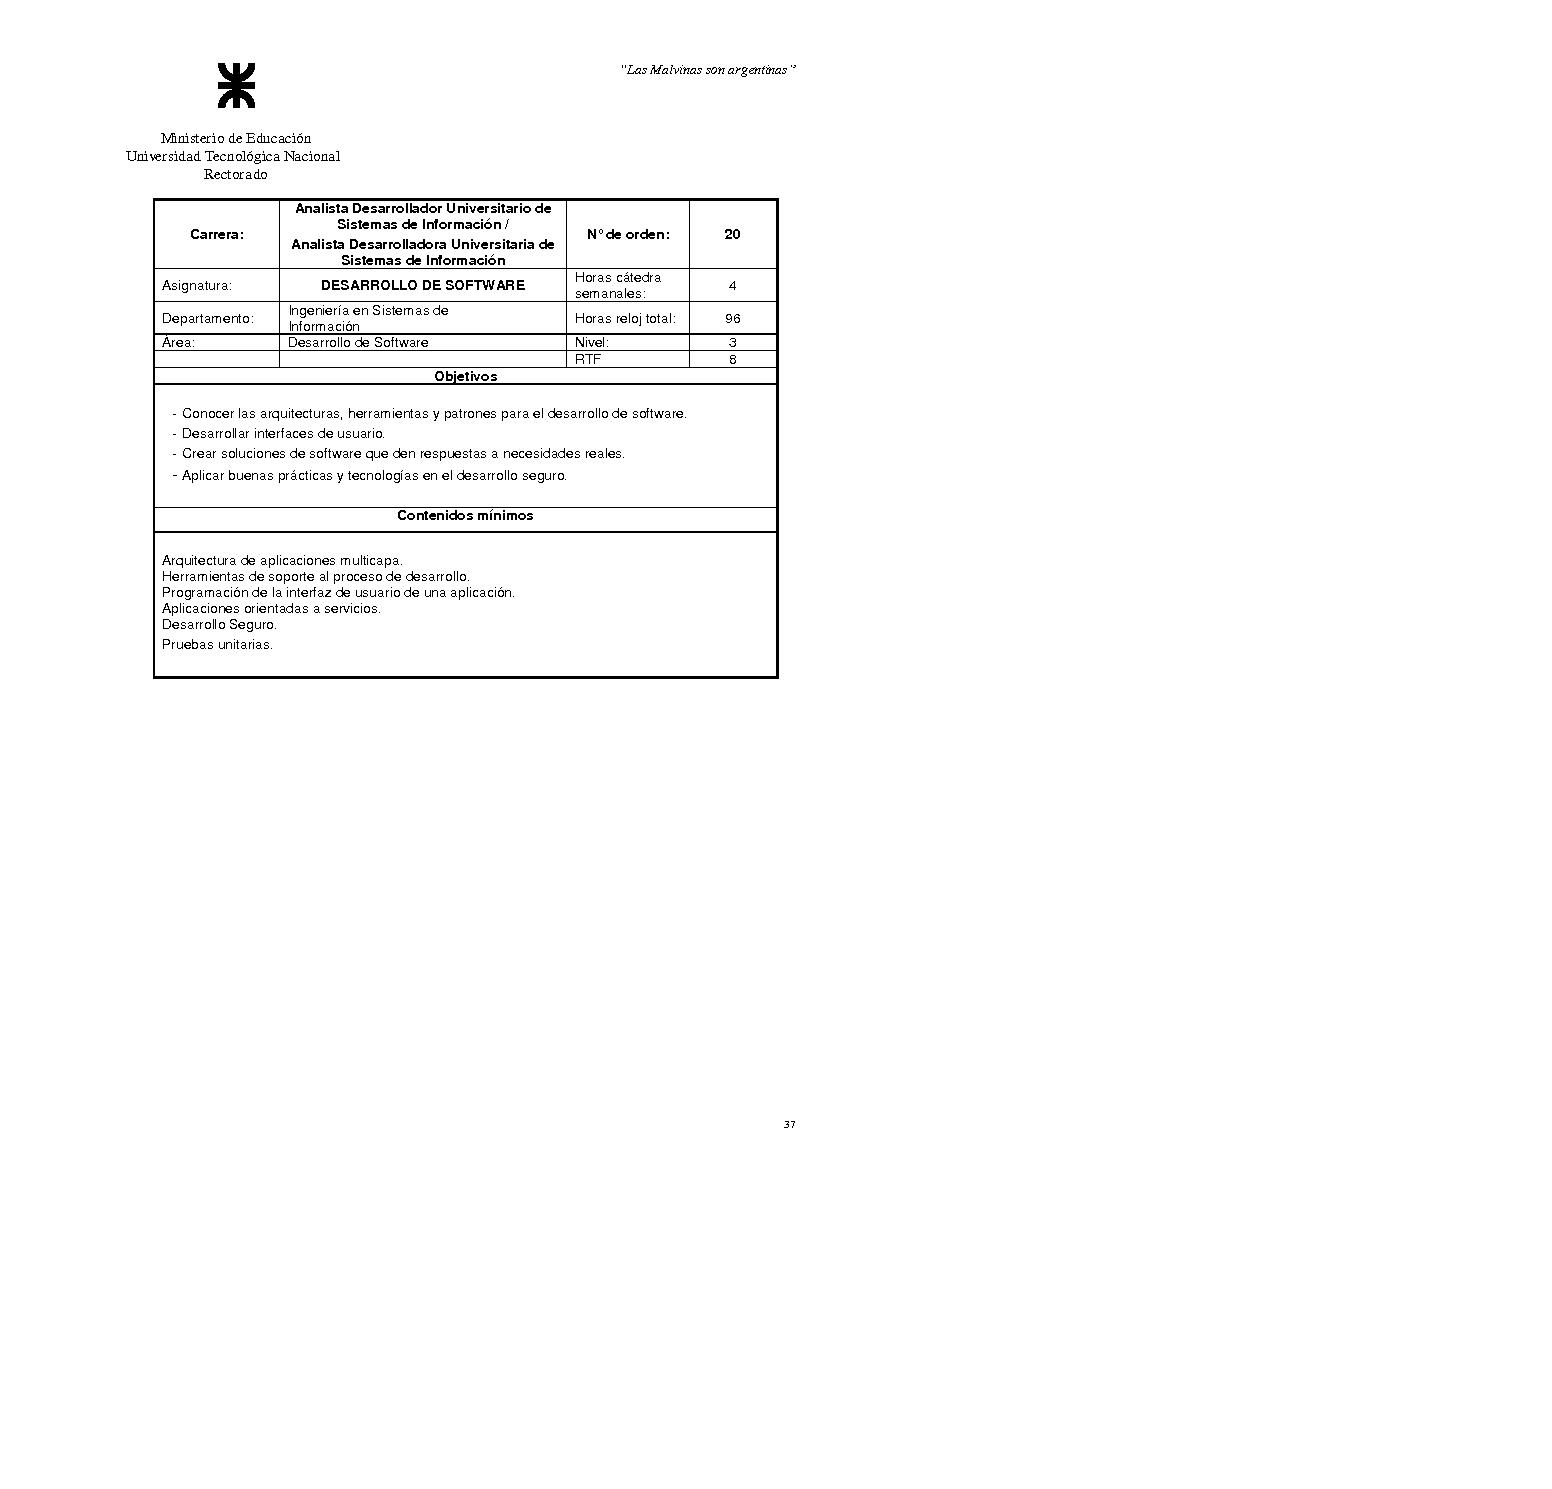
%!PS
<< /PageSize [1552 1489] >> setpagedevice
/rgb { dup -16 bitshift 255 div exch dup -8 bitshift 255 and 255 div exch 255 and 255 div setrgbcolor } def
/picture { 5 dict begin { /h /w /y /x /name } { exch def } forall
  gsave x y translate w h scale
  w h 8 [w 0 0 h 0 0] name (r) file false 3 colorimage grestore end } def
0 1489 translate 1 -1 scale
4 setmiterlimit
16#FFFFFF rgb
0 0 1552 1489 rectfill
(pic1.raw) 120 56 680 1072 picture
showpage
